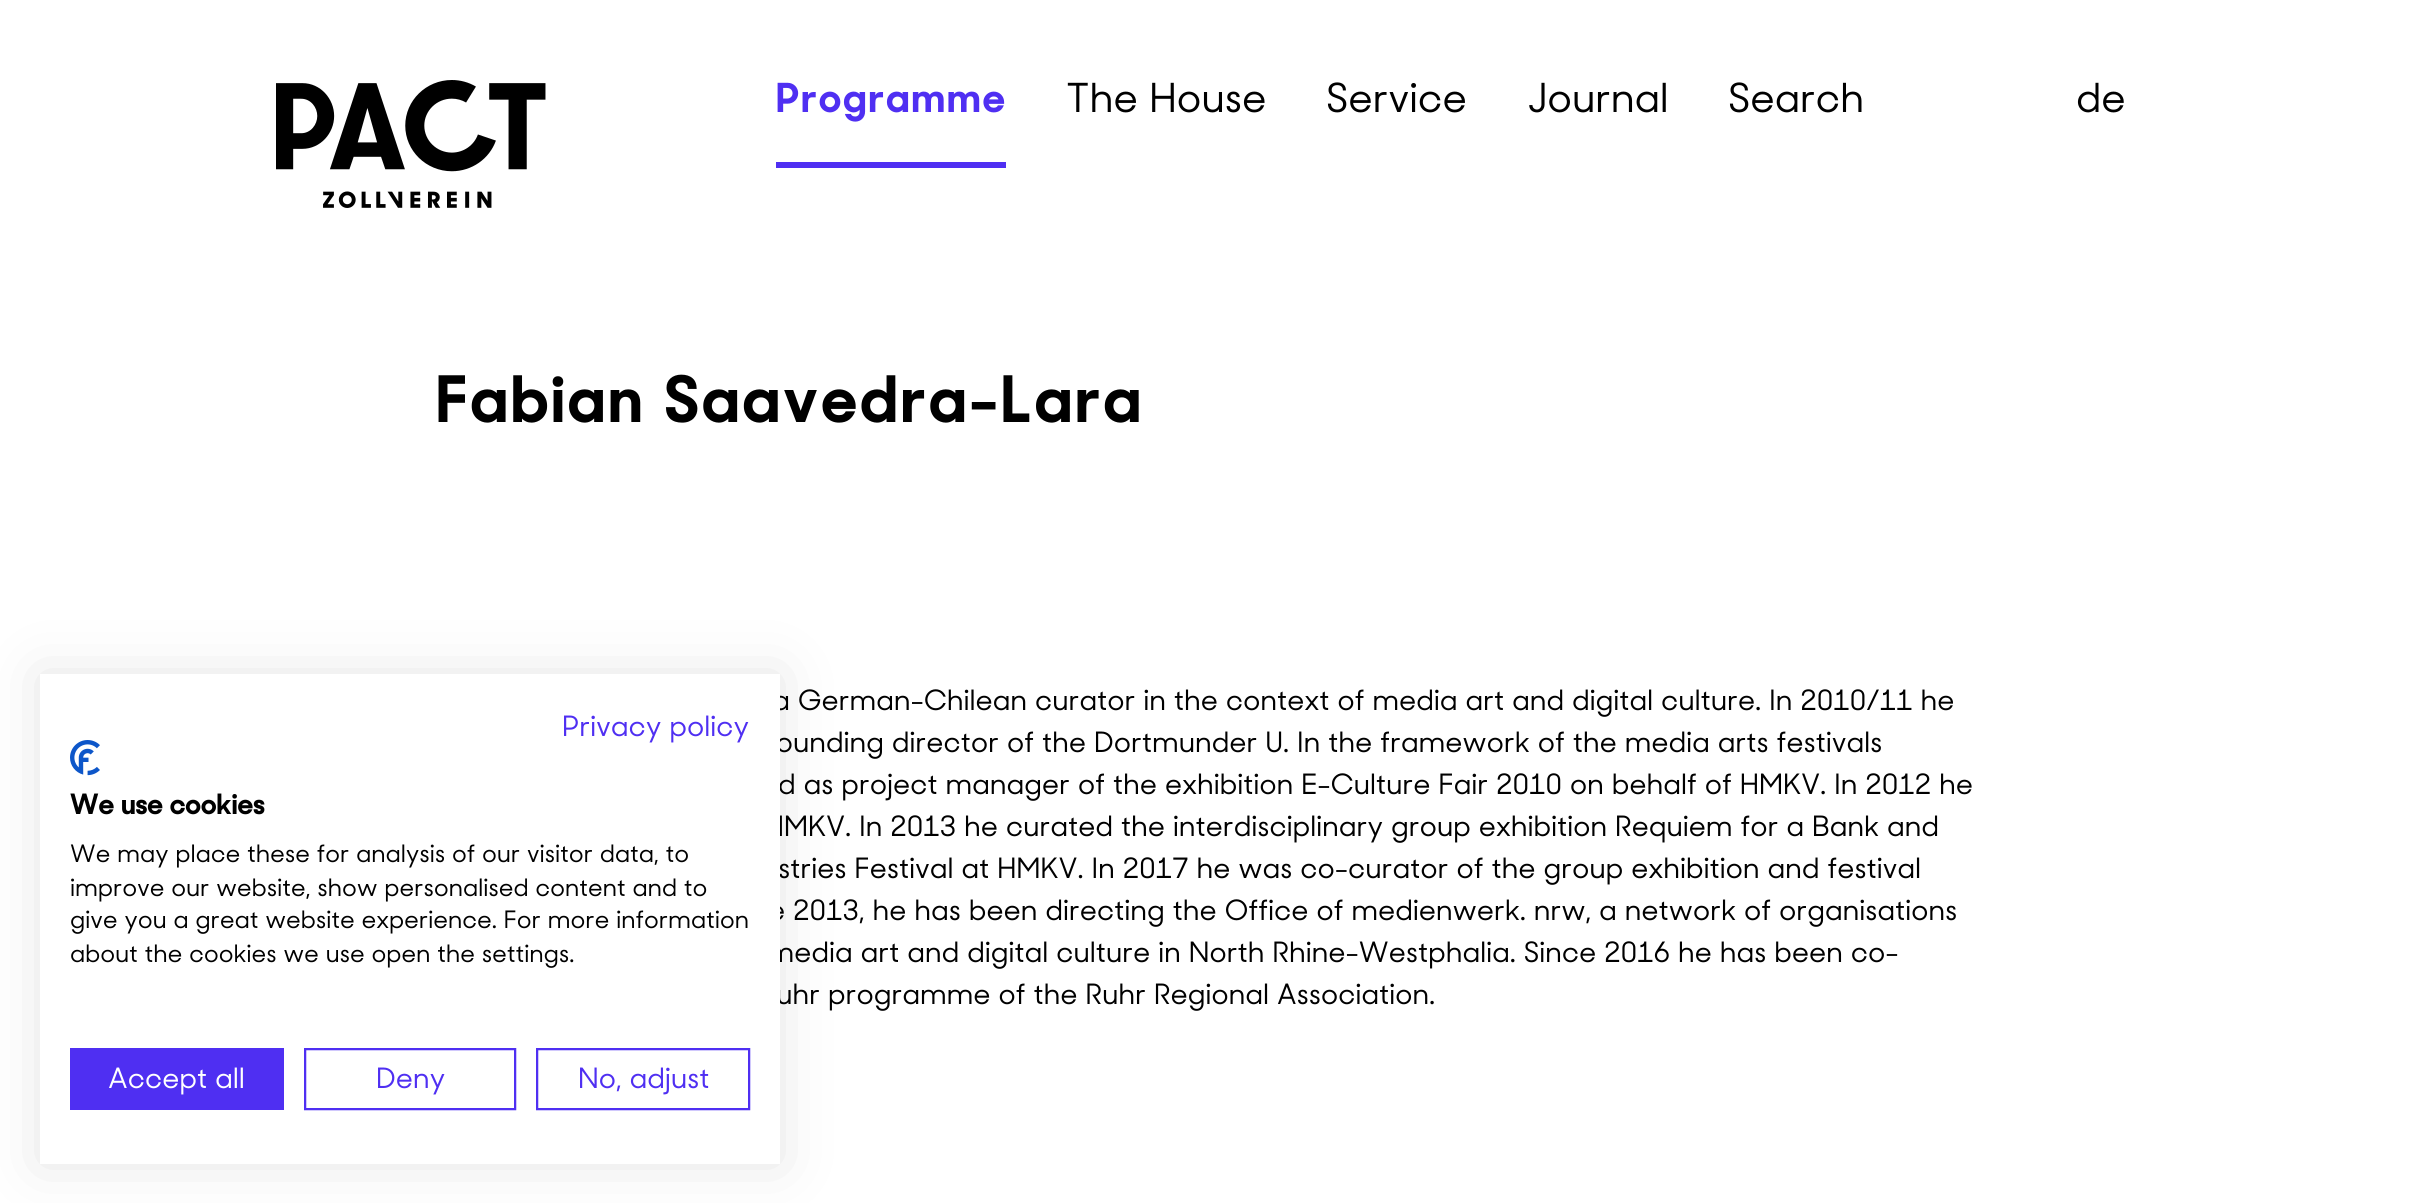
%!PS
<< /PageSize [2412 1203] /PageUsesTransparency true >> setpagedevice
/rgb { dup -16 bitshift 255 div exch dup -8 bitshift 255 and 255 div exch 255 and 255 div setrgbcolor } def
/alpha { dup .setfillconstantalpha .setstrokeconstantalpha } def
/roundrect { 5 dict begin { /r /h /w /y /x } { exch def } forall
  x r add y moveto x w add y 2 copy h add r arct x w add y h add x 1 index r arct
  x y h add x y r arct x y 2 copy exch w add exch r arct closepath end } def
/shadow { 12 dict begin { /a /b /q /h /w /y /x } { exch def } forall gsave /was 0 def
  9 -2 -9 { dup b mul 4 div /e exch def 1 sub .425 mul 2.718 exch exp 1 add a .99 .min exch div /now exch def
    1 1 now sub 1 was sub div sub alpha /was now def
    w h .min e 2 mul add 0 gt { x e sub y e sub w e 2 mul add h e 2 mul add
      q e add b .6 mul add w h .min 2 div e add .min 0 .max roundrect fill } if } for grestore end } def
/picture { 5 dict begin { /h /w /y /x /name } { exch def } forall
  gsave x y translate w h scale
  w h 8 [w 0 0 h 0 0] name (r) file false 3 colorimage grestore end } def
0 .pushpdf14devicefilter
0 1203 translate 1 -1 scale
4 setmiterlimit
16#FFFFFF rgb
0 0 2412 1203 rectfill
(pic1.raw) 276 80 270 128 picture
16#4F2FF2 rgb
776 162 230 6 rectfill
(pic2.raw) 777 82 228 40 picture
(pic3.raw) 1067 82 198 31 picture
(pic4.raw) 1327 82 138 31 picture
(pic5.raw) 1529 82 137 31 picture
(pic6.raw) 1729 82 133 31 picture
(pic7.raw) 2077 82 47 31 picture
(pic8.raw) 438 374 701 49 picture
(pic9.raw) 780 689 1173 28 picture
(pic10.raw) 780 731 1101 28 picture
(pic11.raw) 780 773 1192 28 picture
(pic12.raw) 780 815 1158 28 picture
(pic13.raw) 780 857 1140 28 picture
(pic14.raw) 780 899 1176 28 picture
(pic15.raw) 780 941 1118 28 picture
(pic16.raw) 780 983 654 28 picture
16#000000 rgb
40 674 740 490 0 24 0.1 shadow
16#FFFFFF rgb
40 674 740 490 rectfill
(pic17.raw) 564 715 185 28 picture
(pic18.raw) 70 740 30 36 picture
(pic19.raw) 70 793 195 22 picture
(pic20.raw) 70 844 618 24 picture
(pic21.raw) 71 878 636 24 picture
(pic22.raw) 71 910 677 24 picture
(pic23.raw) 71 944 503 24 picture
16#4F2FF2 rgb
70 1048 214 62 rectfill
(pic24.raw) 109 1067 134 28 picture
2 setlinewidth
305 1049 210 60 rectstroke
(pic25.raw) 378 1067 67 28 picture
537 1049 212 60 rectstroke
(pic26.raw) 580 1067 129 28 picture
.poppdf14devicefilter showpage
